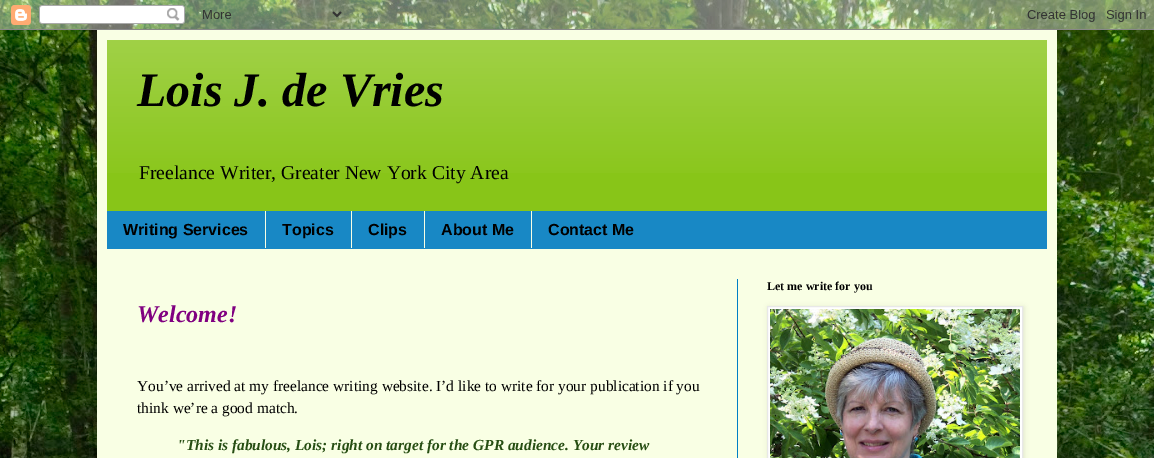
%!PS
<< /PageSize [1154 458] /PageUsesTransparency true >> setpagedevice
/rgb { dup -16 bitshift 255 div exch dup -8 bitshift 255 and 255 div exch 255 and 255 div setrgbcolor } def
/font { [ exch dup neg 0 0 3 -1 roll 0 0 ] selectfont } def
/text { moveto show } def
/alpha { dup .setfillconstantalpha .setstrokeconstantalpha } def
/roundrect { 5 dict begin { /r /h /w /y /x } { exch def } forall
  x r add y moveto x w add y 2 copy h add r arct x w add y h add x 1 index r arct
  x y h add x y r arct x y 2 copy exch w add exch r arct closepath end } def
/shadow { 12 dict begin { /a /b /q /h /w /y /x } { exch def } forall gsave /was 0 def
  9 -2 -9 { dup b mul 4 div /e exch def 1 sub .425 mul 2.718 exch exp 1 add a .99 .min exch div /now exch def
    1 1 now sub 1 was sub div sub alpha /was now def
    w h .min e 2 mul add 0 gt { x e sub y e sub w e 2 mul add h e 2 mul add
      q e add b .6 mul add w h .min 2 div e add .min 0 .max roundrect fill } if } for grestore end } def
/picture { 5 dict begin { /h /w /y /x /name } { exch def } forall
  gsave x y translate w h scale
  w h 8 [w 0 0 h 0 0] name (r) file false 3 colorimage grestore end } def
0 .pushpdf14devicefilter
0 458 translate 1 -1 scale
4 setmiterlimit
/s1 { /LiberationSerif-BoldItalic 48 font 16#000000 rgb } def
/s2 { /LiberationSerif-Regular 19.6 font 16#000000 rgb } def
/s3 { /LiberationSans-Bold 16 font 16#000000 rgb } def
/s4 { /LiberationSerif-Bold 12 font 16#000000 rgb } def
/s5 { /LiberationSerif-BoldItalic 24 font 16#800080 rgb } def
/s6 { /LiberationSerif-Regular 15.4 font 16#000000 rgb } def
/s7 { /LiberationSerif-BoldItalic 15.4 font 16#274E13 rgb } def
16#FFFFFF rgb
0 0 1154 458 rectfill
(pic1.raw) 0 0 1154 458 picture
16#000000 rgb
97 30 960 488 0 20 0.15 shadow
(pic2.raw) 0 0 1154 30 picture
16#F9FFE4 rgb
97 30 960 428 rectfill
16#88C518 rgb
107 40 940 171 rectfill
(pic3.raw) 107 40 940 133 picture
s1
(Lois J. de Vries) 137 106 text
s2
(Freelance Writer, Greater New York City Area) 139 179 text
16#1888C5 rgb
107 211 940 38 rectfill
s3
(Writing Services) 123 235 text
16#F9FFE4 rgb
265 211 1 37 rectfill
s3
(Topics) 282 235 text
16#F9FFE4 rgb
351 211 1 37 rectfill
s3
(Clips) 368 235 text
16#F9FFE4 rgb
424 211 1 37 rectfill
s3
(About Me) 441 235 text
16#F9FFE4 rgb
531 211 1 37 rectfill
s3
(Contact Me) 548 235 text
16#007FC5 rgb
737 279 1 179 rectfill
s4
(Let me write for you) 767 290 text
768 307 256 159 0 2.5 0.1 shadow
16#FFFFFF rgb
767.5 306.5 moveto 1022.5 306.5 lineto 1022.5 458.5 lineto 767.5 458.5 lineto closepath gsave fill grestore
16#E8E8E8 rgb
stroke
(pic4.raw) 770 309 250 149 picture
s5
(Welcome!) 137 322 text
s6
(You’ve arrived at my freelance writing website. I’d like to write for your publication if you) 137 391 text
(think we’re a good match.) 137 413 text
s7
("This is fabulous, Lois; right on target for the GPR audience. Your review) 177 450 text
.poppdf14devicefilter showpage
